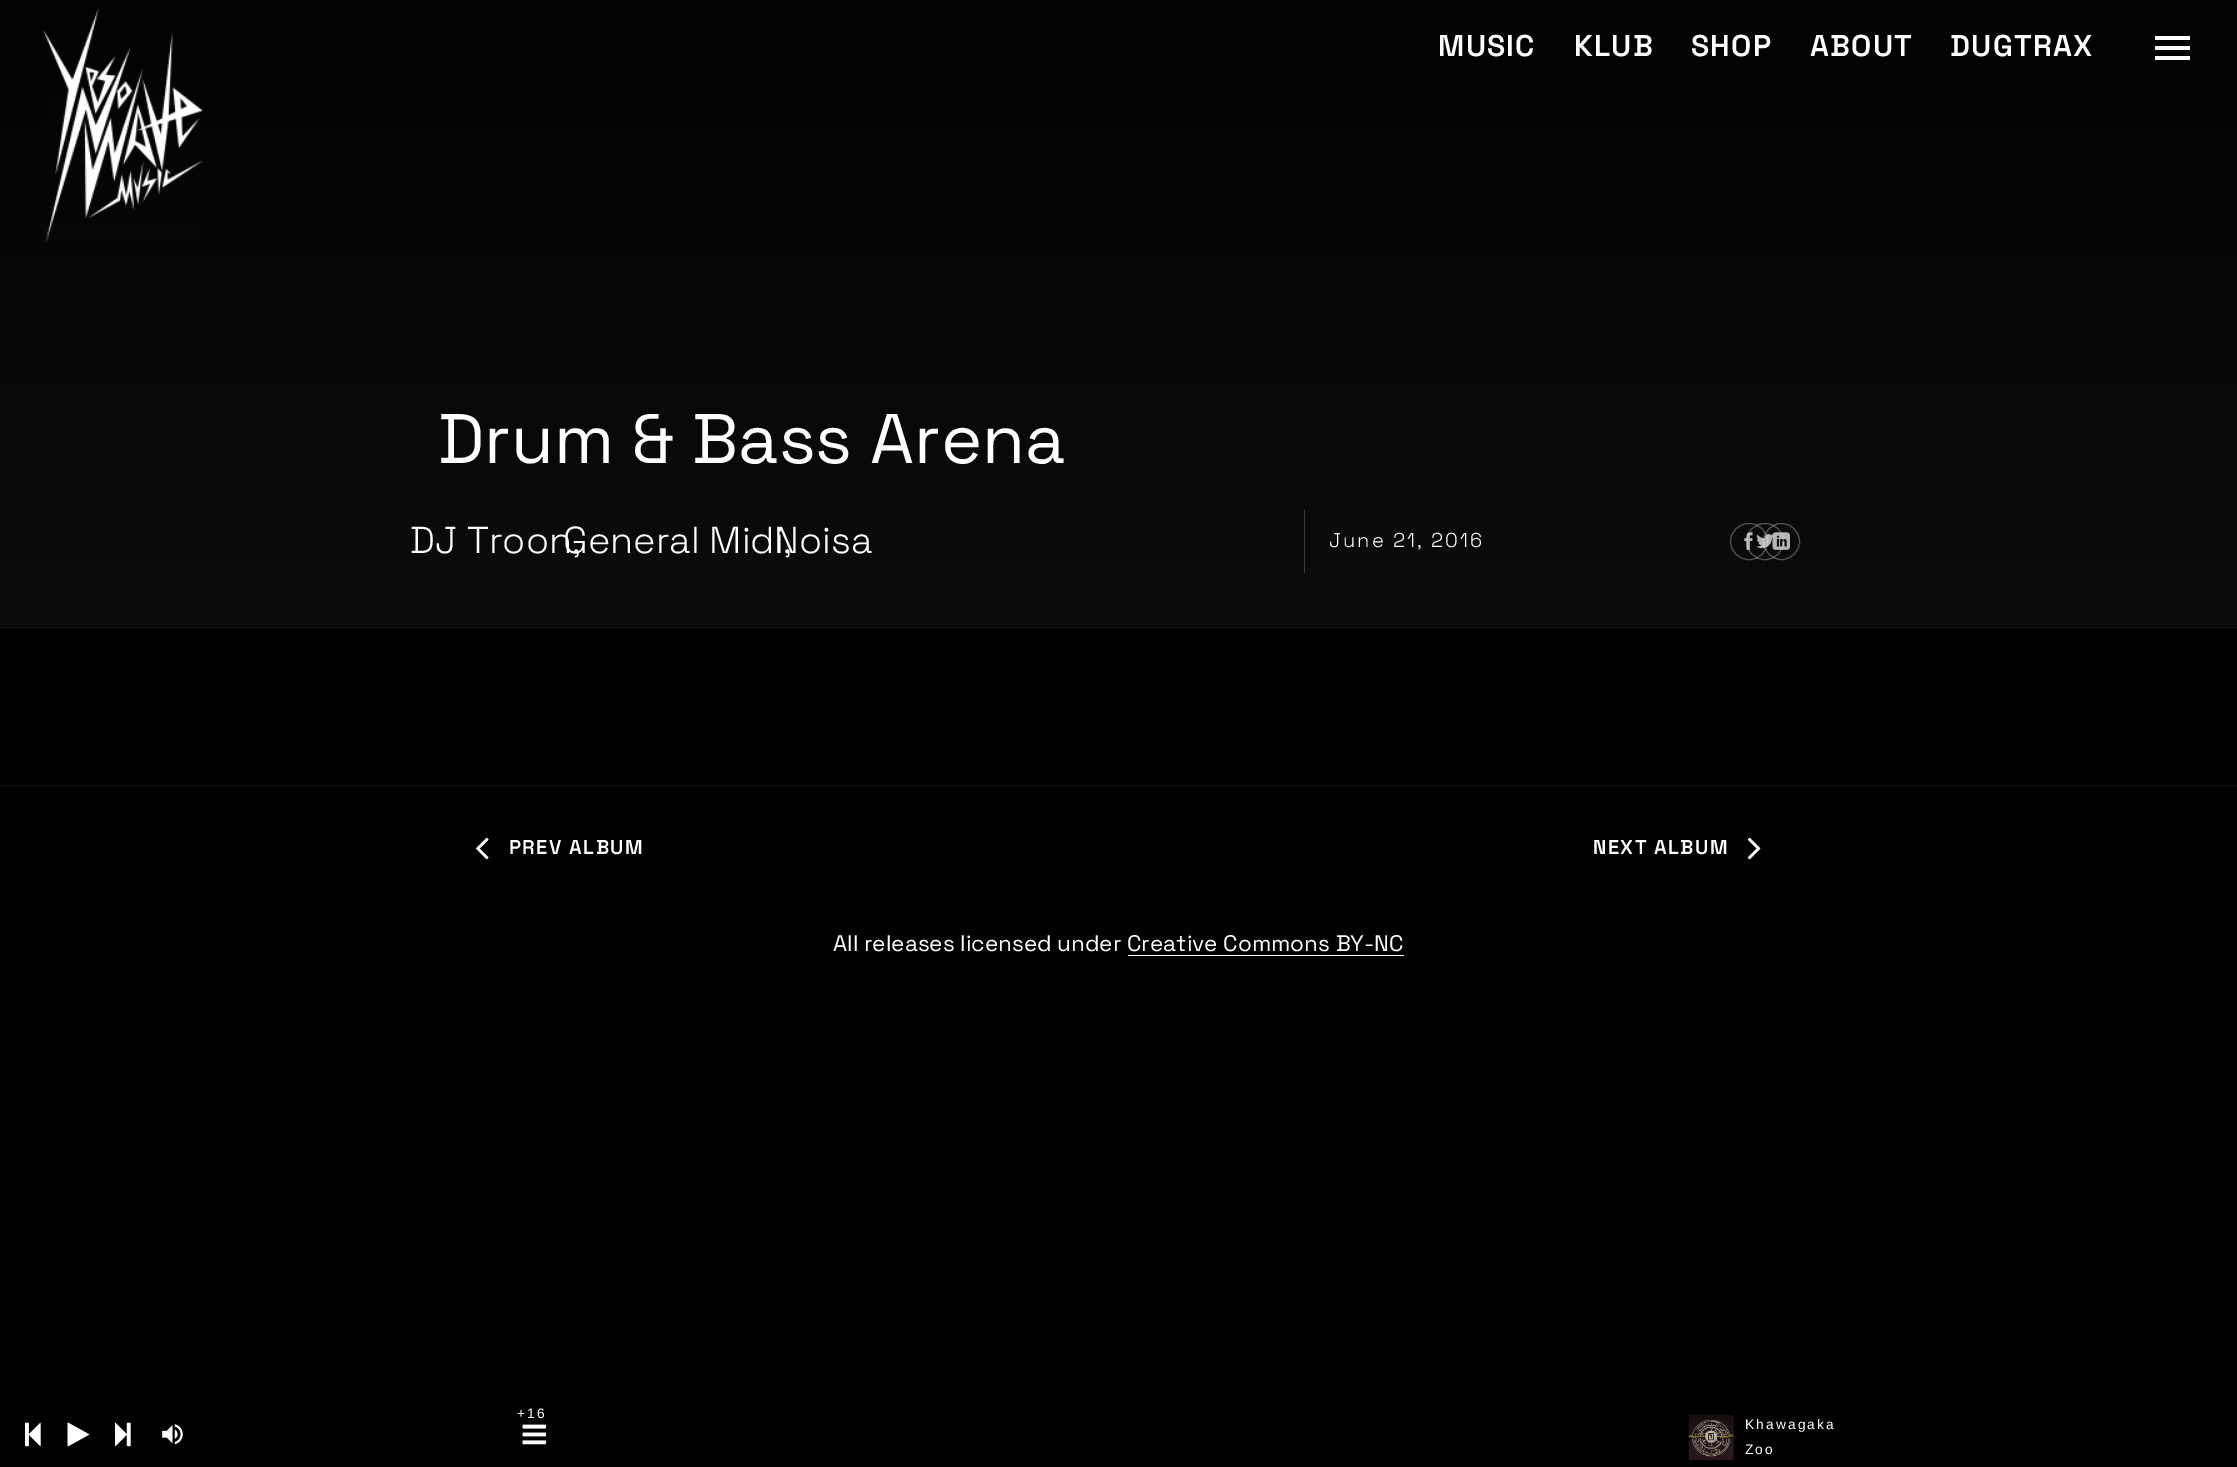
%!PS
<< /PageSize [2237 1467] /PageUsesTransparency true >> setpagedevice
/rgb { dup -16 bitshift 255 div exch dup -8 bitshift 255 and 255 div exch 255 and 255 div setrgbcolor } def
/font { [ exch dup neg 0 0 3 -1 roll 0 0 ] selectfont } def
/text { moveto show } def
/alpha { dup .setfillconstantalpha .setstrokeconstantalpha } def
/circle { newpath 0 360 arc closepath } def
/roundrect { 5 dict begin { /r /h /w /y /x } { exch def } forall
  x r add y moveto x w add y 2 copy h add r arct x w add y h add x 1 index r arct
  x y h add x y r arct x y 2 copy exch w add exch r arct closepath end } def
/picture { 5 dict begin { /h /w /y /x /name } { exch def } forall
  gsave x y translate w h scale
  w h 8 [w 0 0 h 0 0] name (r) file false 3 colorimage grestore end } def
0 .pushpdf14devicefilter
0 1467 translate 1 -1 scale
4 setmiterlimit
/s1 { /SpaceGrotesk-Regular 70 font 16#FFFFFF rgb } def
/s2 { /SpaceGrotesk-Light 37.5 font 16#FFFFFF rgb } def
/s3 { /SpaceGrotesk-Regular 22.5 font 16#FFFFFF rgb } def
16#000000 rgb
0 0 2237 1467 rectfill
gsave 0 0 moveto 2237 0 lineto 2237 629 lineto 0 629 lineto closepath clip newpath
<< /ShadingType 2 /ColorSpace /DeviceRGB /Coords [1119 629 1119 0] /Extend [true true] /Function << /FunctionType 2 /Domain [0 1] /C0 [0.047 0.047 0.051] /C1 [0.008 0.008 0.012] /N 1 >> >> shfill grestore
(pic1.raw) 43 8 160 234 picture
/SpaceGrotesk-SemiBold 30 font
16#FFFFFF rgb
1438 56 moveto 1.25 0 (MUSIC) ashow
1574 56 moveto 1.25 0 (KLUB) ashow
1691 56 moveto 1.25 0 (SHOP) ashow
1810 56 moveto 1.25 0 (ABOUT) ashow
1950 56 moveto 1.25 0 (DUGTRAX) ashow
2155 46 35 4 rectfill
2155 36 35 4 rectfill
2155 56 35 4 rectfill
s1
(Drum & Bass Arena) 438 463 text
s2
(DJ Troon,) 410 553 text
(General Midi,) 563 553 text
(Noisa) 774 553 text
16#3B3B3C rgb
1304 510 1 63 rectfill
/SpaceGrotesk-Light 20 font
16#FFFFFF rgb
1329 547 moveto 2.1 0 (June 21, 2016) ashow
16#545455 rgb
1730.5 523.5 37 36 18 roundrect stroke
(pic2.raw) 1744 532 9 18 picture
0.3 alpha
16#FFFFFF rgb
1746.5 523.5 37 36 18 roundrect stroke
1 alpha
(pic3.raw) 1756 534 18 15 picture
0.3 alpha
1781.5 541.5 18 circle stroke
1 alpha
(pic4.raw) 1772 532 18 18 picture
16#0F0F0F rgb
0 785 2237 1 rectfill
(pic5.raw) 476 837 13 23 picture
/SpaceGrotesk-SemiBold 20 font
16#FFFFFF rgb
509 854 moveto 1.4 0 (PREV ALBUM) ashow
1593 854 moveto 1.4 0 (NEXT ALBUM) ashow
(pic6.raw) 1747 837 14 23 picture
s3
(All releases licensed under Creative Commons BY-NC) 833 951 text
1128 955 276 1 rectfill
/LiberationSans-Regular 13.75 font
517 1418 moveto 2.1 0 (+16) ashow
(pic7.raw) 522 1424 25 21 picture
(pic8.raw) 25 1422 16 25 picture
(pic9.raw) 67 1422 23 25 picture
(pic10.raw) 115 1422 16 25 picture
(pic11.raw) 162 1424 21 21 picture
(pic12.raw) 1688 1415 46 45 picture
1745 1429 moveto 2.1 0 (Khawagaka) ashow
1745 1454 moveto 2.1 0 (Zoo) ashow
.poppdf14devicefilter showpage
